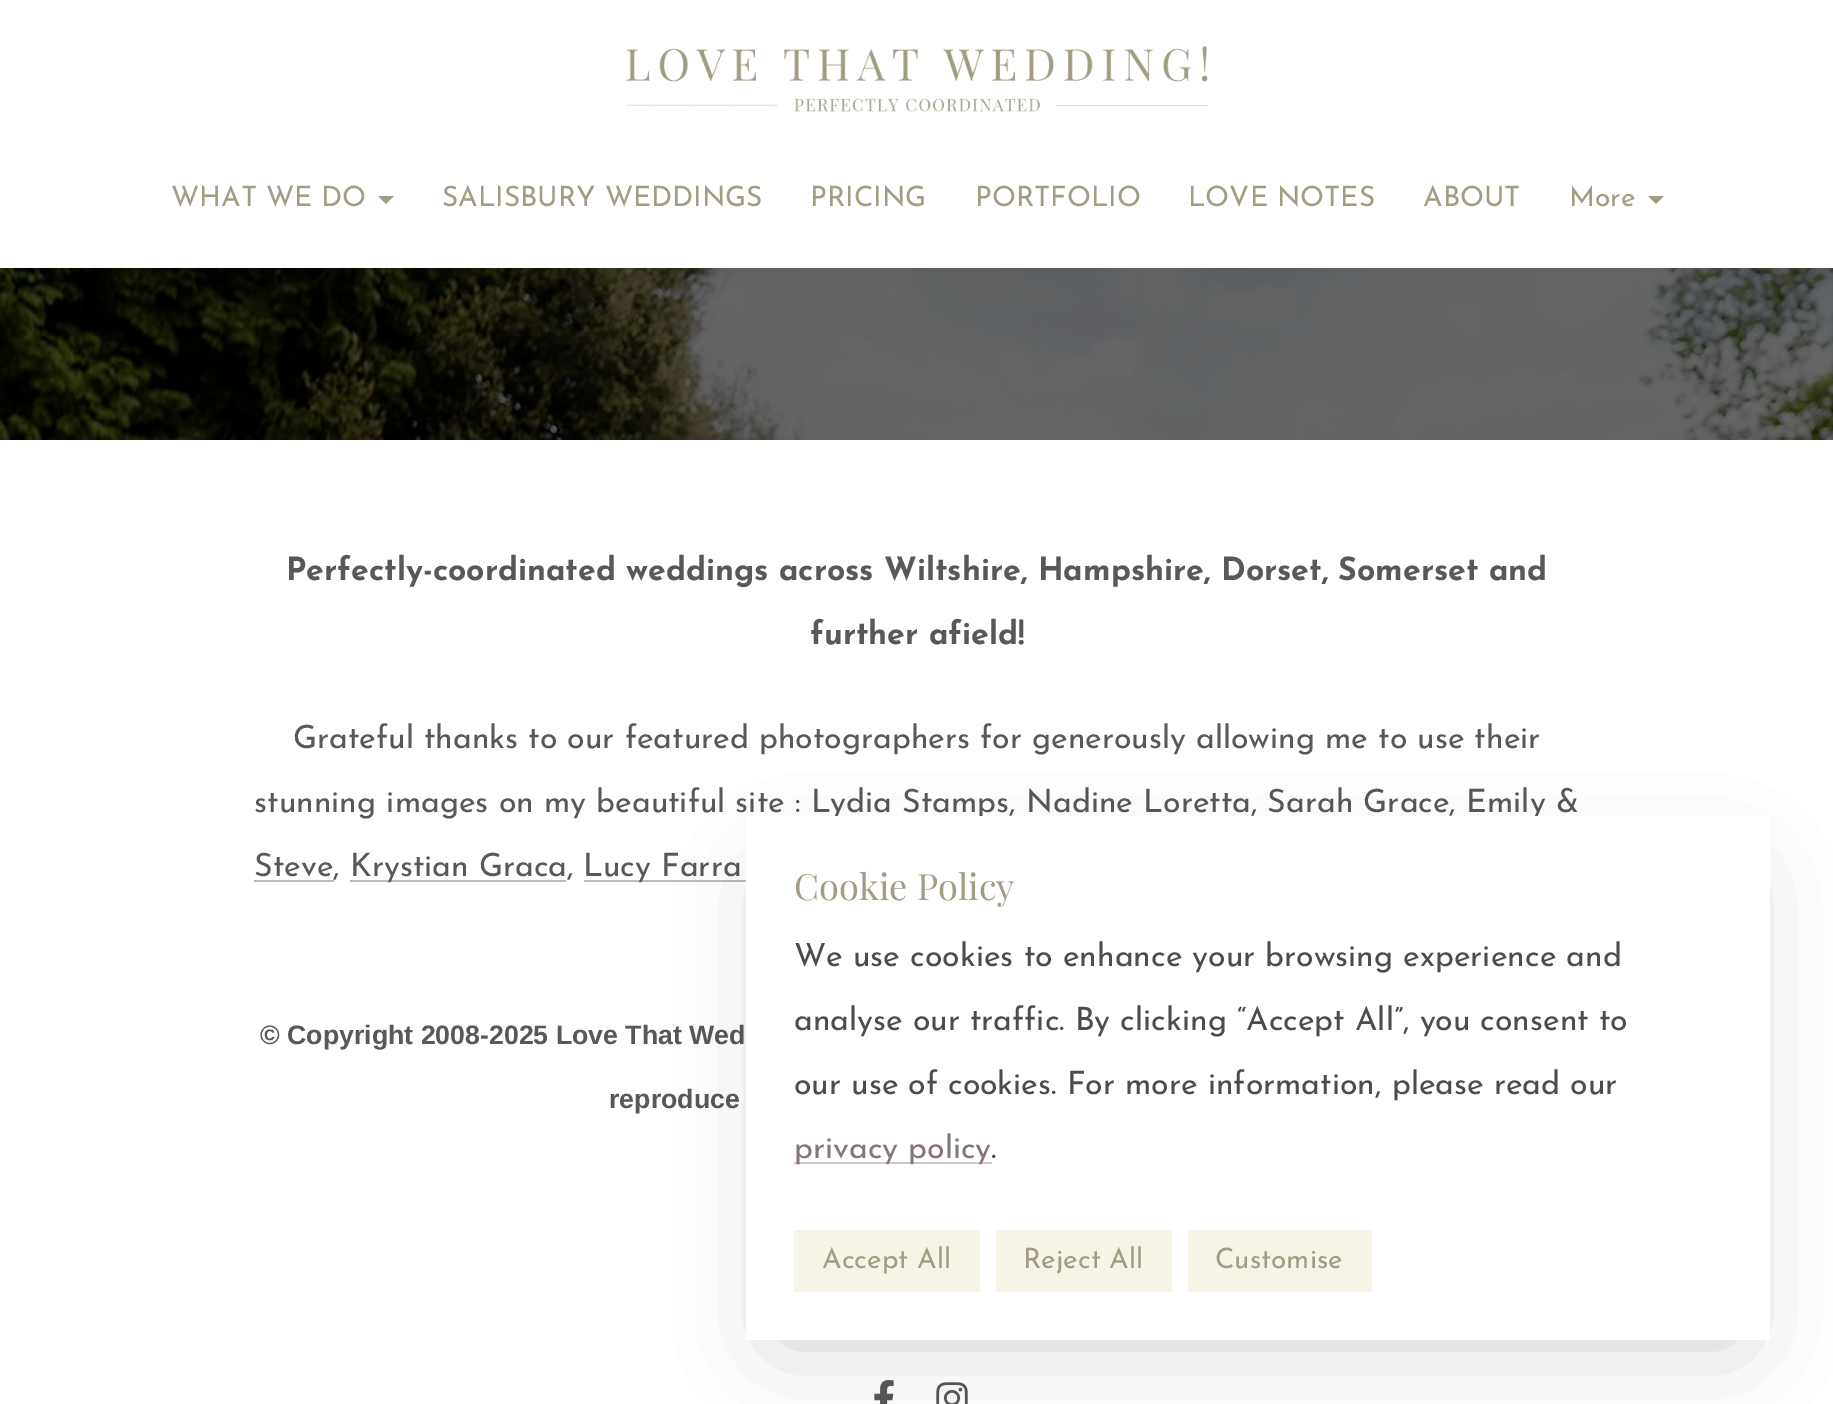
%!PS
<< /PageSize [1833 1404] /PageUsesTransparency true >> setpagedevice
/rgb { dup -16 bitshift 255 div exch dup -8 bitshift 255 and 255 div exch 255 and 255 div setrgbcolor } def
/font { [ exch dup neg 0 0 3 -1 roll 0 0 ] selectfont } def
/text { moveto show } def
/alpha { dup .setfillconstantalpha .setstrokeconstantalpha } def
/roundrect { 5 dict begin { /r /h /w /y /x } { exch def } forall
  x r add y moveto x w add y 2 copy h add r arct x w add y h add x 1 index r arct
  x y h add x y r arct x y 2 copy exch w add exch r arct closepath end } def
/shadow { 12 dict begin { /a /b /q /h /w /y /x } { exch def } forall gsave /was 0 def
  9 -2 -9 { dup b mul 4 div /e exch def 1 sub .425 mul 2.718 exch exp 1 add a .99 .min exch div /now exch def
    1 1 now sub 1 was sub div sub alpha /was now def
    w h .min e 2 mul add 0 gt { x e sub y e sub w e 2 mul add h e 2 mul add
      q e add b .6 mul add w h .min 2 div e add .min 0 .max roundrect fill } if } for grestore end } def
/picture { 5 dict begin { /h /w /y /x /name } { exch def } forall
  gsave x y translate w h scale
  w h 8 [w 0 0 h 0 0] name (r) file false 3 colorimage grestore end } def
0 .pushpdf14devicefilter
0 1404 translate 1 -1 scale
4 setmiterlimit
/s1 { /JosefinSans-Regular 28 font 16#A29C84 rgb } def
/s2 { /JosefinSans-Bold 32 font 16#595759 rgb } def
/s3 { /JosefinSans-Regular 32 font 16#595759 rgb } def
/s4 { /LiberationSans-Bold 26.7 font 16#595759 rgb } def
/s5 { /PlayfairDisplay-Regular 36.25 font 16#A29C84 rgb } def
/s6 { /JosefinSans-Regular 32 font 16#4B4D49 rgb } def
/s7 { /JosefinSans-Regular 32 font 16#867676 rgb } def
16#FFFFFF rgb
0 0 1833 1404 rectfill
(pic1.raw) 626 46 582 66 picture
s1
(WHAT WE DO) 171 206 text
378 196 moveto 394 196 lineto 386 204 lineto closepath fill
(SALISBURY WEDDINGS) 442 206 text
(PRICING) 810 206 text
(PORTFOLIO) 975 206 text
(LOVE NOTES) 1188 206 text
(ABOUT) 1423 206 text
(More) 1569 206 text
1648 196 moveto 1664 196 lineto 1656 204 lineto closepath fill
(pic2.raw) 0 268 1833 172 picture
s2
(Perfectly-coordinated weddings across Wiltshire, Hampshire, Dorset, Somerset and) 286 580 text
(further afield!) 810 644 text
s3
(Grateful thanks to our featured photographers for generously allowing me to use their) 293 748 text
(stunning images on my beautiful site : Lydia Stamps, Nadine Loretta, Sarah Grace, Emily &) 254 812 text
(Steve,) 254 876 text
16#BDBCBD rgb
254 880 80 2 rectfill
350 880 216 2 rectfill
s3
(Krystian Graca,) 350 876 text
16#BDBCBD rgb
584 880 162 2 rectfill
s3
(Lucy Farra) 583 876 text
s4
(© Copyright 2008-2025 Love That Wed) 260 1044 text
(reproduce) 609 1108 text
(pic3.raw) 874 1380 20 24 picture
(pic4.raw) 936 1382 32 22 picture
16#0A0A0A rgb
778 880 960 460 0 48 0.2 shadow
16#FFFFFF rgb
746 816 1024 524 rectfill
s5
(Cookie Policy) 794 900 text
s6
(We use cookies to enhance your browsing experience and) 794 966 text
(analyse our traffic. By clicking “Accept All”, you consent to) 794 1030 text
(our use of cookies. For more information, please read our) 794 1094 text
16#CFC8C8 rgb
794 1162 198 2 rectfill
s7
(privacy policy) 794 1158 text
s6
(.) 991 1158 text
16#F6F3E7 rgb
794 1230 186 62 rectfill
s1
(Accept All) 822 1268 text
16#F6F3E7 rgb
996 1230 176 62 rectfill
s1
(Reject All) 1023 1268 text
16#F6F3E7 rgb
1188 1230 184 62 rectfill
s1
(Customise) 1215 1268 text
.poppdf14devicefilter showpage
